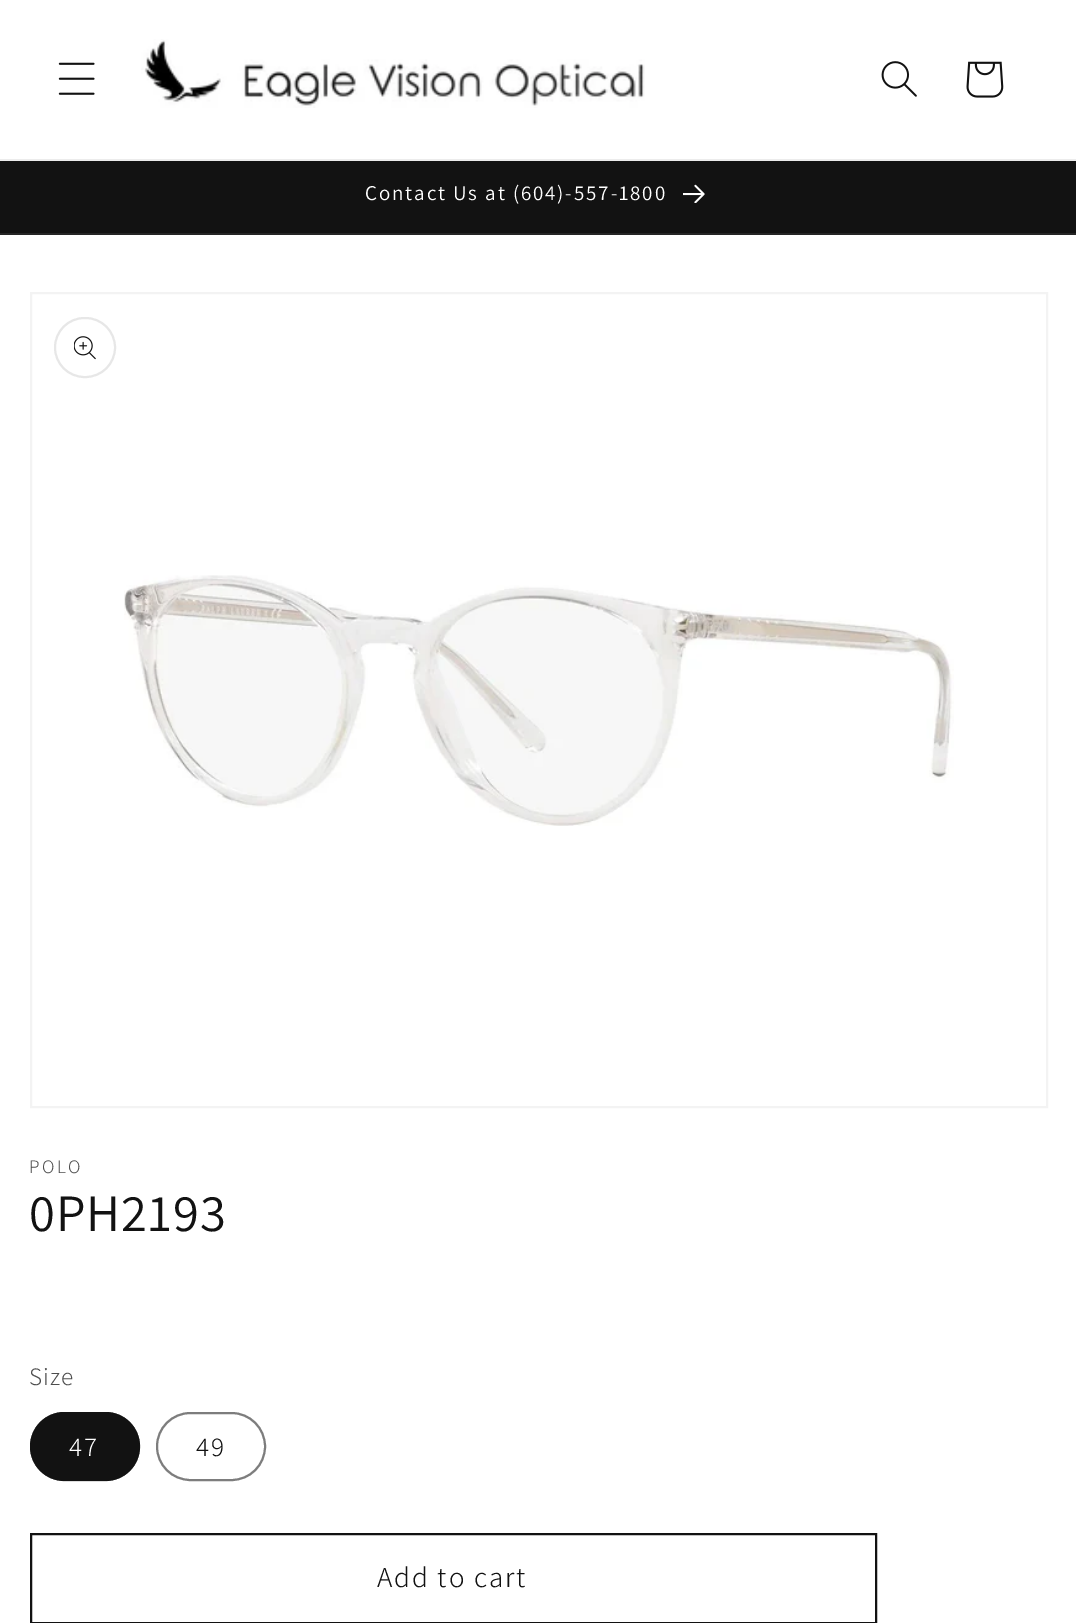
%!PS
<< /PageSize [1076 1623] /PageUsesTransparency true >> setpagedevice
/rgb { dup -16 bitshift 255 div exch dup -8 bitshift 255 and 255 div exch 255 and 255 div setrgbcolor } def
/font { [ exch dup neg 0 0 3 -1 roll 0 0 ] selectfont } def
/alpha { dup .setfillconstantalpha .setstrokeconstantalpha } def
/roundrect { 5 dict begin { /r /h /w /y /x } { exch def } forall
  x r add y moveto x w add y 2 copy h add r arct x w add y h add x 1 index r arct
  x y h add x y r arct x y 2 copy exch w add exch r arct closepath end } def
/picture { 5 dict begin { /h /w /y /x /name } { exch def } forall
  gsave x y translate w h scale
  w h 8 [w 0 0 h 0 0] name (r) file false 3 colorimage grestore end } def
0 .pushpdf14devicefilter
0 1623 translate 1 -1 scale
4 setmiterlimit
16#FFFFFF rgb
0 0 1076 1623 rectfill
16#ECECEC rgb
0 159 1076 2 rectfill
(pic1.raw) 58 62 37 33 picture
(pic2.raw) 141 39 504 69 picture
(pic3.raw) 881 61 36 36 picture
(pic4.raw) 966 61 38 37 picture
16#121212 rgb
0 161 1076 72 rectfill
16#252525 rgb
0 233 1076 2 rectfill
/Assistant-Regular 21 font
16#FFFFFF rgb
365 200 moveto 1.9 0 (Contact Us at \(604\)-557-1800) ashow
(pic5.raw) 683 184 22 19 picture
16#F3F3F3 rgb
2 setlinewidth
31 293 1016 814 rectstroke
16#E7E7E7 rgb
55 318 60 59 29.5 roundrect stroke
(pic6.raw) 74 336 22 24 picture
(pic7.raw) 124 575 830 251 picture
/Assistant-Light 19 font
16#4D4D4D rgb
29 1173 moveto 2.5 0 (POLO) ashow
/Assistant-Regular 52.5 font
16#121212 rgb
29 1231 moveto 1 0 (0PH2193) ashow
/Assistant-Light 25 font
16#4D4D4D rgb
29 1385 moveto 1 0 (Size) ashow
16#121212 rgb
30 1412 110 69 34.5 roundrect fill
0.55 alpha
31 1413 108 67 33.5 roundrect stroke
/Assistant-Light 27 font
1 alpha
16#FFFFFF rgb
69 1456 moveto 1.9 0 (47) ashow
16#7D7D7D rgb
157 1413 108 67 33.5 roundrect stroke
16#121212 rgb
196 1456 moveto 1.9 0 (49) ashow
31 1534 845 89 rectstroke
/Assistant-Light 29 font
377 1587 moveto 1.9 0 (Add to cart) ashow
.poppdf14devicefilter showpage
